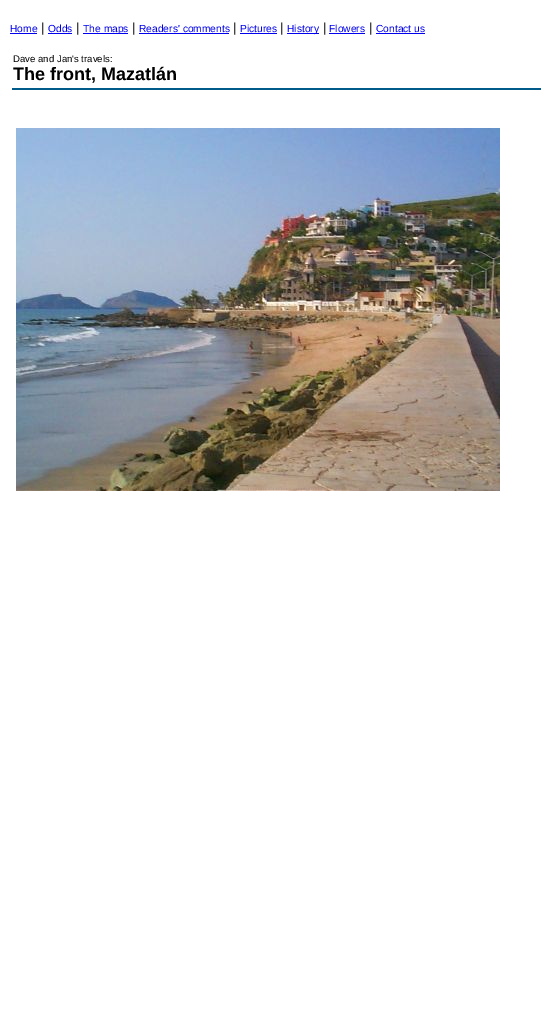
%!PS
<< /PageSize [553 1017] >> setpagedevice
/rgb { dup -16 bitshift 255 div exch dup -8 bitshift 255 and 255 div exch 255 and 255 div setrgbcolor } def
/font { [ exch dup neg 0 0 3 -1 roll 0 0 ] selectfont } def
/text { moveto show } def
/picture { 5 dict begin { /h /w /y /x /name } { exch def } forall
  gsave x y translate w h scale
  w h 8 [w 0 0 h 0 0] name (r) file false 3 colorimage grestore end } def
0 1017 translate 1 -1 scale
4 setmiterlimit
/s1 { /LiberationSans-Regular 10.25 font 16#0000EE rgb } def
/s2 { /LiberationSans-Regular 13 font 16#000000 rgb } def
/s3 { /LiberationSans-Regular 9.6 font 16#000000 rgb } def
/s4 { /LiberationSans-Bold 18 font 16#000000 rgb } def
16#FFFFFF rgb
0 0 553 1017 rectfill
s1
(Home) 10 32 text
10 33 27 1 rectfill
s2
(|) 41 32 text
s1
(Odds) 48 32 text
48 33 24 1 rectfill
s2
(|) 76 32 text
16#0000EE rgb
83 33 45 1 rectfill
s1
(The maps) 83 32 text
s2
(|) 132 32 text
s1
(Readers' comments) 139 32 text
139 33 90 1 rectfill
s2
(|) 233 32 text
s1
(Pictures) 240 32 text
240 33 37 1 rectfill
s2
(|) 280 32 text
16#0000EE rgb
287 33 32 1 rectfill
s1
(History) 287 32 text
s2
(|) 323 32 text
s1
(Flowers) 329 32 text
329 33 36 1 rectfill
s2
(|) 369 32 text
s1
(Contact us) 376 32 text
376 33 49 1 rectfill
s3
(Dave and Jan's travels:) 13 62 text
s4
(The front, Mazatlán) 13 80 text
16#005A8A rgb
12 88 529 2 rectfill
(pic1.raw) 16 128 484 363 picture
showpage
